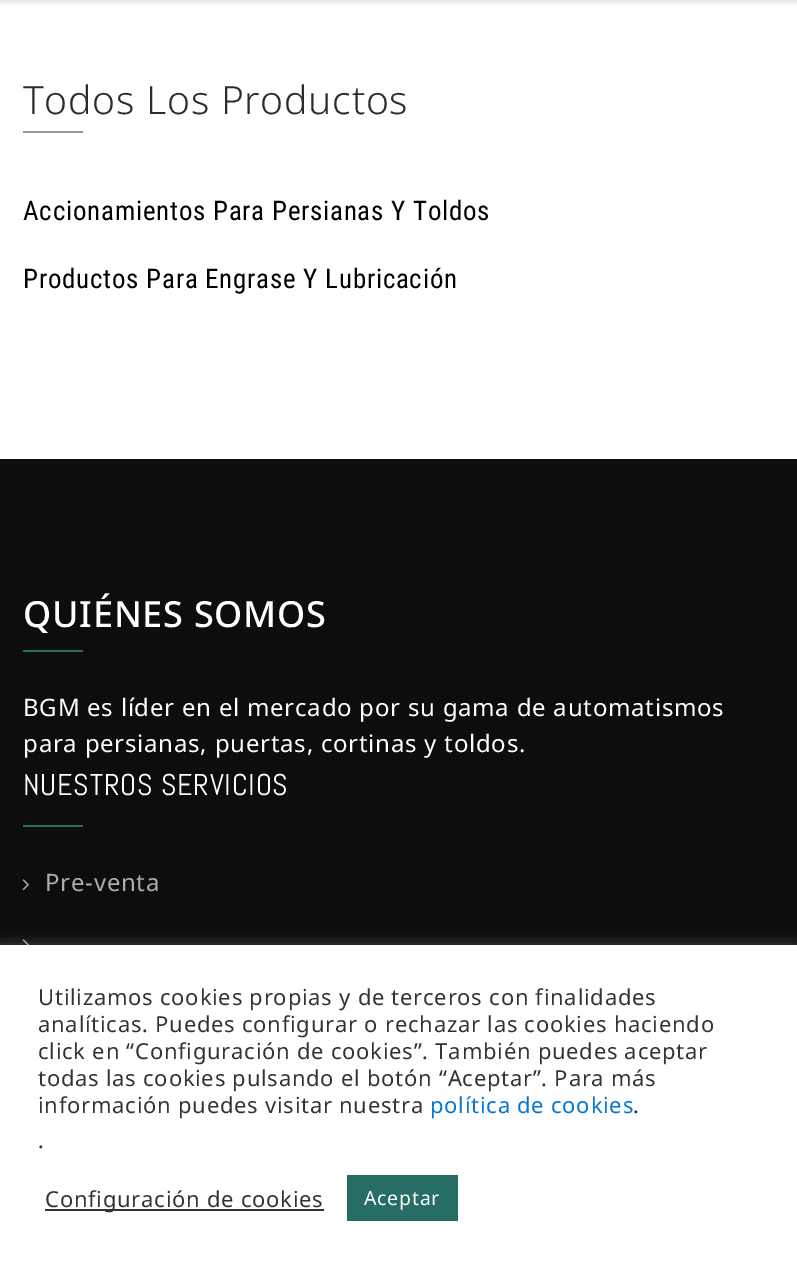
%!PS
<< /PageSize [797 1266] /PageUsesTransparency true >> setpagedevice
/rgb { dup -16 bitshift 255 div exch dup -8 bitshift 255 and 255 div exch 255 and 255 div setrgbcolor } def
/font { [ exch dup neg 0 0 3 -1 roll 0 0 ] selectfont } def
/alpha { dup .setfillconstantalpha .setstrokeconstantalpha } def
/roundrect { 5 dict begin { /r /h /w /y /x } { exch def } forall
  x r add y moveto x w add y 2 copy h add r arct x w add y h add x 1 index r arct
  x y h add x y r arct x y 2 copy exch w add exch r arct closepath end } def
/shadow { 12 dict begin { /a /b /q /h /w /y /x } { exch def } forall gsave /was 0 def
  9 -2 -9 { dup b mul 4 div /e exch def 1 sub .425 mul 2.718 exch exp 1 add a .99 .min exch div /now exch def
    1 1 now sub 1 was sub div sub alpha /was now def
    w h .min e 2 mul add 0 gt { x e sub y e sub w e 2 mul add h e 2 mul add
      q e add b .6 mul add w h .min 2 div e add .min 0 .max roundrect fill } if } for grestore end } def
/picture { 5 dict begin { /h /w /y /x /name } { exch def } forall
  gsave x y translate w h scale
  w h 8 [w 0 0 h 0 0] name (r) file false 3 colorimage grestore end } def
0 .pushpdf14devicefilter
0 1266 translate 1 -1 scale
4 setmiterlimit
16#FFFFFF rgb
0 0 797 1266 rectfill
16#000000 rgb
-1 -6 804 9 0 2 0.1 shadow
/NotoSans-Light 39 font
16#292B2C rgb
23 114 moveto 0.75 0 (Todos Los Productos) ashow
16#999999 rgb
23 131 60 2 rectfill
/RobotoCondensed-Regular 27 font
16#000000 rgb
23 220 moveto 0.75 0 (Accionamientos Para Persianas Y Toldos) ashow
23 288 moveto 0.75 0 (Productos Para Engrase Y Lubricación) ashow
16#0D0D0D rgb
0 459 797 486 rectfill
/NotoSans-Medium 36 font
16#FFFFFF rgb
23 627 moveto 0.75 0 (QUIÉNES SOMOS) ashow
16#266D65 rgb
23 650 60 2 rectfill
/NotoSans-Regular 24 font
16#FFFFFF rgb
23 716 moveto 0.75 0 (BGM es líder en el mercado por su gama de automatismos) ashow
23 752 moveto 0.75 0 (para persianas, puertas, cortinas y toldos.) ashow
/Abel-Regular 30 font
23 795 moveto 0.75 0 (NUESTROS SERVICIOS) ashow
16#266D65 rgb
23 825 60 2 rectfill
(pic1.raw) 22 879 7 12 picture
/NotoSans-Regular 24 font
16#ACACAC rgb
45 891 moveto 0.75 0 (Pre-venta) ashow
(pic2.raw) 22 939 7 6 picture
16#ACABAB rgb
0 944 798 321 0 7.5 0.3 shadow
16#FFFFFF rgb
0 945 797 321 rectfill
/NotoSans-Regular 22 font
16#333333 rgb
38 1005 moveto 0.75 0 (Utilizamos cookies propias y de terceros con finalidades) ashow
38 1032 moveto 0.75 0 (analíticas. Puedes configurar o rechazar las cookies haciendo) ashow
38 1059 moveto 0.75 0 (click en “Configuración de cookies”. También puedes aceptar) ashow
38 1086 moveto 0.75 0 (todas las cookies pulsando el botón “Aceptar”. Para más) ashow
38 1113 moveto 0.75 0 (información puedes visitar nuestra) ashow
16#0275D8 rgb
430 1113 moveto 0.75 0 (política de cookies) ashow
16#333333 rgb
633 1113 moveto 0.75 0 (.) ashow
38 1148 moveto 0.75 0 (.) ashow
45 1209 279 2 rectfill
45 1207 moveto 0.75 0 (Configuración de cookies) ashow
16#266D65 rgb
347 1175 111 46 rectfill
/NotoSans-Regular 19.5 font
16#FFFFFF rgb
364 1205 moveto 0.75 0 (Aceptar) ashow
.poppdf14devicefilter showpage
